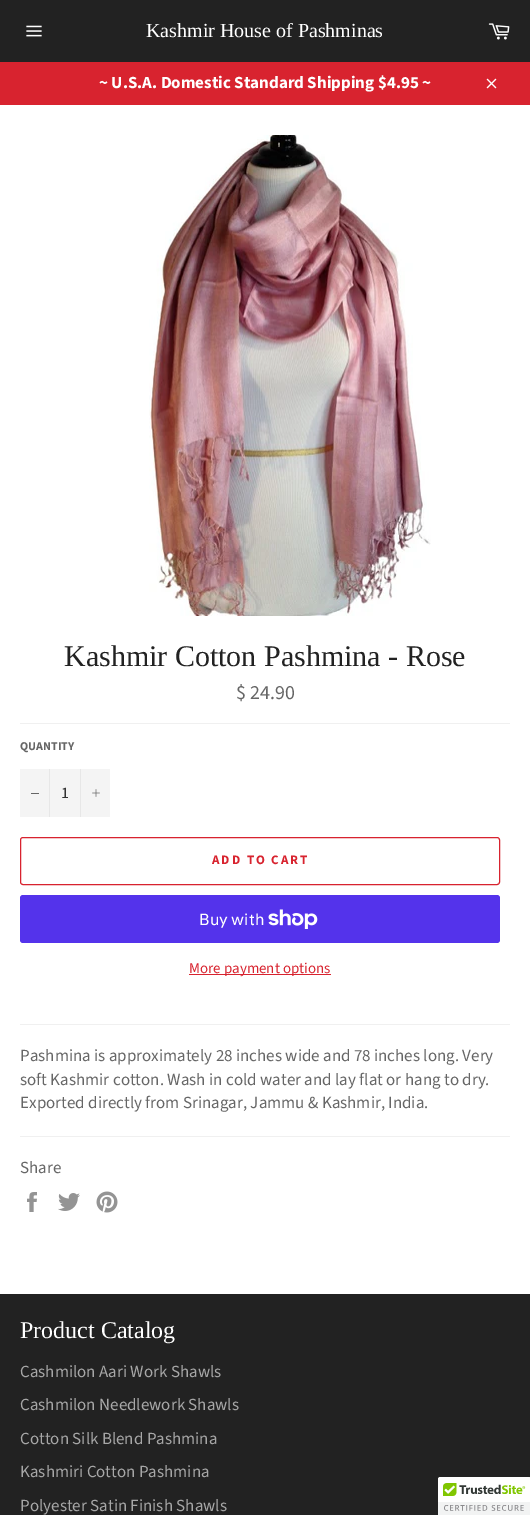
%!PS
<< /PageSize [530 1515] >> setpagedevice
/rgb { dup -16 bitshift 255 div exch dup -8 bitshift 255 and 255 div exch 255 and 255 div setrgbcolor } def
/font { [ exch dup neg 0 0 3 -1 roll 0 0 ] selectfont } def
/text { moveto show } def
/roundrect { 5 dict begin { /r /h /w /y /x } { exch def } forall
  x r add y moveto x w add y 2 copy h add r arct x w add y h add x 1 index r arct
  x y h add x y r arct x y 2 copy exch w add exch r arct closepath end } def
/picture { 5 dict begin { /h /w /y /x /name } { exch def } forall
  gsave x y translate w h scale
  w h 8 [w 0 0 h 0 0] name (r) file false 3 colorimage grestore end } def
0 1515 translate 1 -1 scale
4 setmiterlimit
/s1 { /LiberationSerif-Regular 20 font 16#FFFFFF rgb } def
/s2 { /SourceSansPro-Bold 17 font 16#FFFFFF rgb } def
/s3 { /LiberationSerif-Regular 30 font 16#222222 rgb } def
/s4 { /SourceSansPro-Regular 20 font 16#666666 rgb } def
/s5 { /SourceSansPro-Bold 12 font 16#666666 rgb } def
/s6 { /SourceSansPro-Regular 16 font 16#333333 rgb } def
/s7 { /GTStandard-Regular 16 font 16#FFFFFF rgb } def
/s8 { /SourceSansPro-Regular 15 font 16#D8232F rgb } def
/s9 { /SourceSansPro-Regular 17 font 16#666666 rgb } def
/s10 { /LiberationSerif-Regular 24 font 16#FFFFFF rgb } def
/s11 { /SourceSansPro-Regular 17 font 16#A7A7A7 rgb } def
16#222222 rgb
0 0 530 1515 rectfill
(pic1.raw) 26 25 16 12 picture
s1
(Kashmir House of Pashminas) 146 37 text
(pic2.raw) 488 23 22 17 picture
16#D8232F rgb
0 62 530 43 rectfill
s2
(~ U.S.A. Domestic Standard Shipping $4.95 ~) 99 88 text
(pic3.raw) 486 78 11 11 picture
0 105 530 1189 rectfill
(pic4.raw) 149 135 282 481 picture
s3
(Kashmir Cotton Pashmina - Rose) 64 666 text
s4
($ 24.90) 236 699 text
16#F0F0F0 rgb
20 723 490 1 rectfill
s5
(QUANTITY) 20 750 text
16#F4F4F4 rgb
20 769 90 48 rectfill
16#E7E7E7 rgb
49 769 1 48 rectfill
16#666666 rgb
31 793 8 1 rectfill
s6
(1) 61 798 text
16#E7E7E7 rgb
80 769 1 48 rectfill
(pic5.raw) 92 789 8 8 picture
16#D8232F rgb
20.5 837.5 479 47 2.5 roundrect stroke
/SourceSansPro-Bold 13 font
212 864 moveto 2 0 (ADD TO CART) ashow
16#5433EB rgb
20 895 480 48 3 roundrect fill
s7
(Buy with) 199 925 text
(pic6.raw) 268 909 50 20 picture
16#D8232F rgb
189 974 142 1 rectfill
s8
(More payment options) 189 973 text
16#F0F0F0 rgb
20 1024 490 1 rectfill
s9
(Pashmina is approximately 28 inches wide and 78 inches long. Very) 20 1061 text
(soft Kashmir cotton. Wash in cold water and lay flat or hang to dry.) 20 1085 text
(Exported directly from Srinagar, Jammu & Kashmir, India.) 20 1108 text
16#F0F0F0 rgb
20 1136 490 1 rectfill
s9
(Share) 20 1173 text
(pic7.raw) 27 1192 10 20 picture
(pic8.raw) 58 1193 22 18 picture
(pic9.raw) 96 1191 22 22 picture
s10
(Product Catalog) 20 1338 text
s11
(Cashmilon Aari Work Shawls) 20 1377 text
(Cashmilon Needlework Shawls) 20 1410 text
(Cotton Silk Blend Pashmina) 20 1444 text
(Kashmiri Cotton Pashmina) 20 1477 text
(Polyester Satin Finish Shawls) 20 1511 text
16#FFFFFF rgb
440 1477 moveto 530 1477 lineto 530 1515 lineto 438 1515 lineto 438 1479 lineto 438 1478 439 1477 440 1477 curveto closepath fill
(pic10.raw) 438 1477 92 38 picture
showpage
